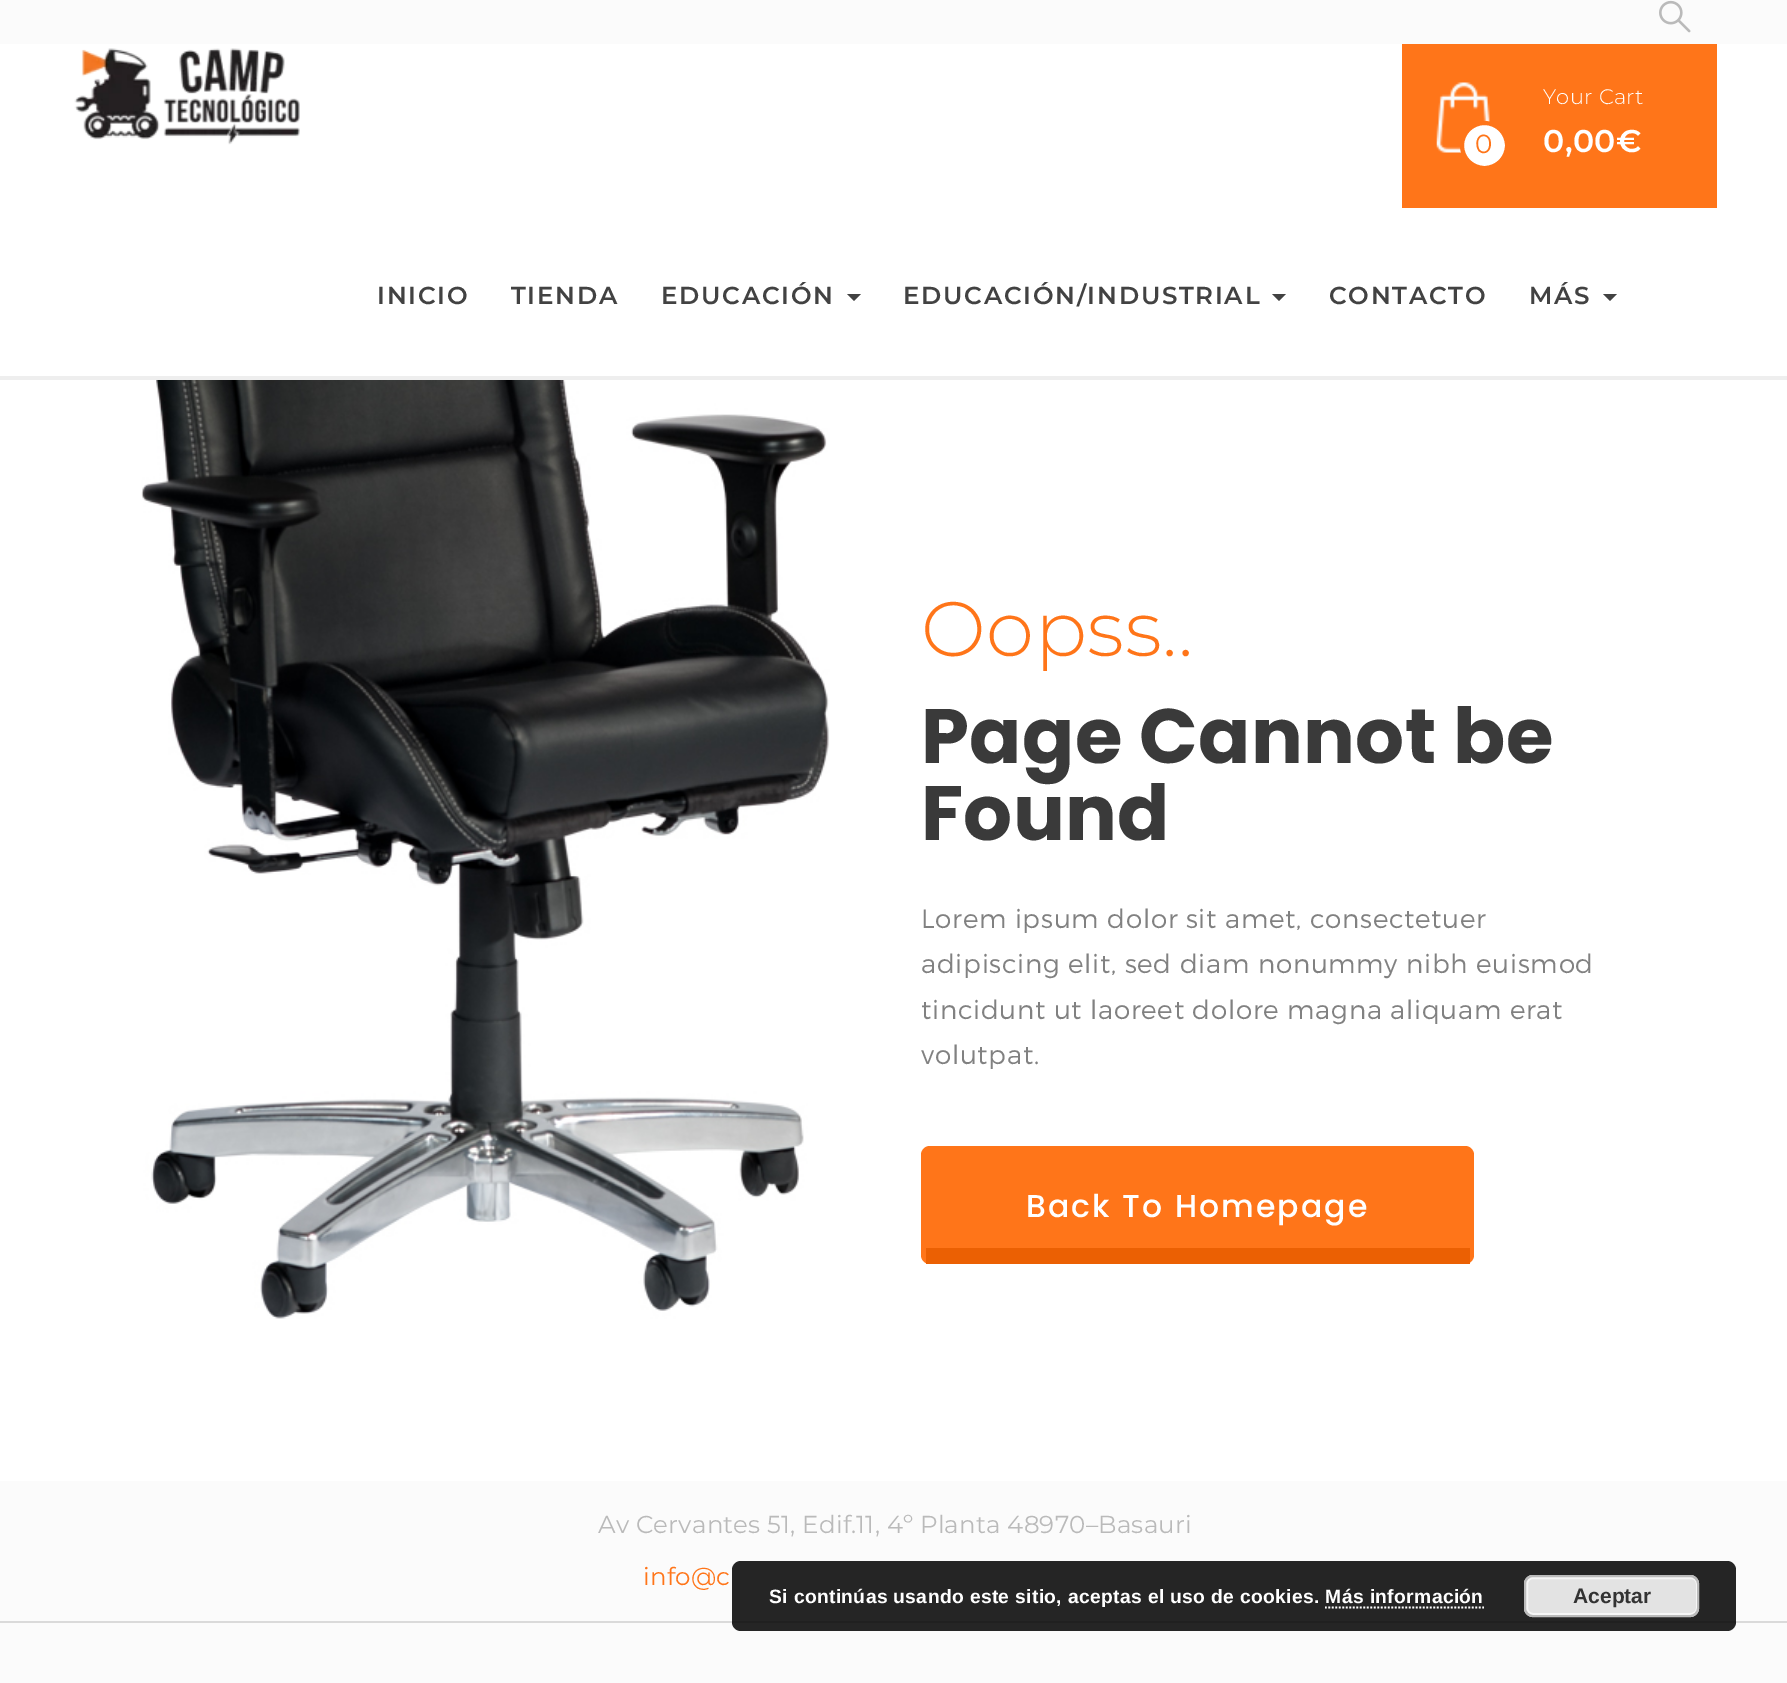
%!PS
<< /PageSize [1787 1683] /PageUsesTransparency true >> setpagedevice
/rgb { dup -16 bitshift 255 div exch dup -8 bitshift 255 and 255 div exch 255 and 255 div setrgbcolor } def
/font { [ exch dup neg 0 0 3 -1 roll 0 0 ] selectfont } def
/text { moveto show } def
/alpha { dup .setfillconstantalpha .setstrokeconstantalpha } def
/circle { newpath 0 360 arc closepath } def
/roundrect { 5 dict begin { /r /h /w /y /x } { exch def } forall
  x r add y moveto x w add y 2 copy h add r arct x w add y h add x 1 index r arct
  x y h add x y r arct x y 2 copy exch w add exch r arct closepath end } def
/picture { 5 dict begin { /h /w /y /x /name } { exch def } forall
  gsave x y translate w h scale
  w h 8 [w 0 0 h 0 0] name (r) file false 3 colorimage grestore end } def
0 .pushpdf14devicefilter
0 1683 translate 1 -1 scale
4 setmiterlimit
/s1 { /LiberationSans-Bold 21 font 16#333333 rgb } def
16#FFFFFF rgb
0 0 1787 1683 rectfill
16#FBFBFB rgb
0 0 1787 44 rectfill
(pic1.raw) 1659 0 32 33 picture
16#EEEEEE rgb
0 376 1787 4 rectfill
(pic2.raw) 74 48 226 97 picture
16#FF7519 rgb
1402 44 315 164 rectfill
(pic3.raw) 1436 82 54 71 picture
16#FFFFFF rgb
1484.5 145.5 22.5 circle gsave fill grestore
16#FF7519 rgb
4 setlinewidth
stroke
/Montserrat-Regular 26.25 font
1475 153 moveto 0.35 0 (0) ashow
/Montserrat-Light 21 font
16#FFFFFF rgb
1543 104 moveto 0.35 0 (Your Cart) ashow
/Montserrat-SemiBold 31.5 font
1543 152 moveto 0.35 0 (0,00€) ashow
/Montserrat-SemiBold 24.5 font
16#424242 rgb
377 304 moveto 1.75 0 (INICIO) ashow
511 304 moveto 1.75 0 (TIENDA) ashow
661 304 moveto 1.75 0 (EDUCACIÓN) ashow
847 294 moveto 861 294 lineto 854 301 lineto closepath fill
903 304 moveto 1.75 0 (EDUCACIÓN/INDUSTRIAL) ashow
1272 294 moveto 1286 294 lineto 1279 301 lineto closepath fill
1329 304 moveto 1.75 0 (CONTACTO) ashow
1529 304 moveto 1.75 0 (MÁS) ashow
1603 294 moveto 1617 294 lineto 1610 301 lineto closepath fill
(pic4.raw) 141 380 689 939 picture
/Montserrat-Light 77 font
16#FF7519 rgb
921 656 moveto 0.7 0 (Oopss..) ashow
/Poppins-Bold 77 font
16#3A3A3A rgb
921 763 moveto 0.35 0 (Page Cannot be) ashow
921 840 moveto 0.35 0 (Found) ashow
/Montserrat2-Light 26.25 font
16#818181 rgb
921 928 moveto 0.7 0 (Lorem ipsum dolor sit amet, consectetuer) ashow
921 973 moveto 0.7 0 (adipiscing elit, sed diam nonummy nibh euismod) ashow
921 1019 moveto 0.7 0 (tincidunt ut laoreet dolore magna aliquam erat) ashow
921 1064 moveto 0.7 0 (volutpat.) ashow
16#FF7519 rgb
921 1146 553 118 9 roundrect fill
16#EB6003 rgb
926 1248 544 16 rectfill
/Poppins-Medium 31.5 font
16#FFFFFF rgb
1026 1217 moveto 2.1 0 (Back To Homepage) ashow
16#FBFBFB rgb
0 1481 1787 202 rectfill
/Montserrat-Regular 24.5 font
16#BABABA rgb
598 1533 moveto 0.2 0 (Av Cervantes 51, Edif.11, 4º Planta 48970–Basauri) ashow
16#FF7519 rgb
643 1585 moveto 0.2 0 (info@c) ashow
16#DADADA rgb
0 1621 1787 2 rectfill
0.85 alpha
16#000000 rgb
732 1561 1004 70 9 roundrect fill
/LiberationSans-Bold 19.25 font
1 alpha
16#FFFFFF rgb
769 1603 moveto 0.35 0 (Si continúas usando este sitio, aceptas el uso de cookies. Más información) ashow
16#E3E3E3 rgb
1524 1575 175 42 9 roundrect fill
16#F6F6F6 rgb
2 setlinewidth
1527 1578 170 36 6 roundrect stroke
16#BBBBBB rgb
1525 1576 173 40 8 roundrect stroke
s1
(Aceptar) 1573 1603 text
16#FFFFFF rgb
1.8 setlinewidth
[1.75 1.75] 0 setdash
1325 1607.5 moveto 1484 1607.5 lineto stroke
.poppdf14devicefilter showpage
